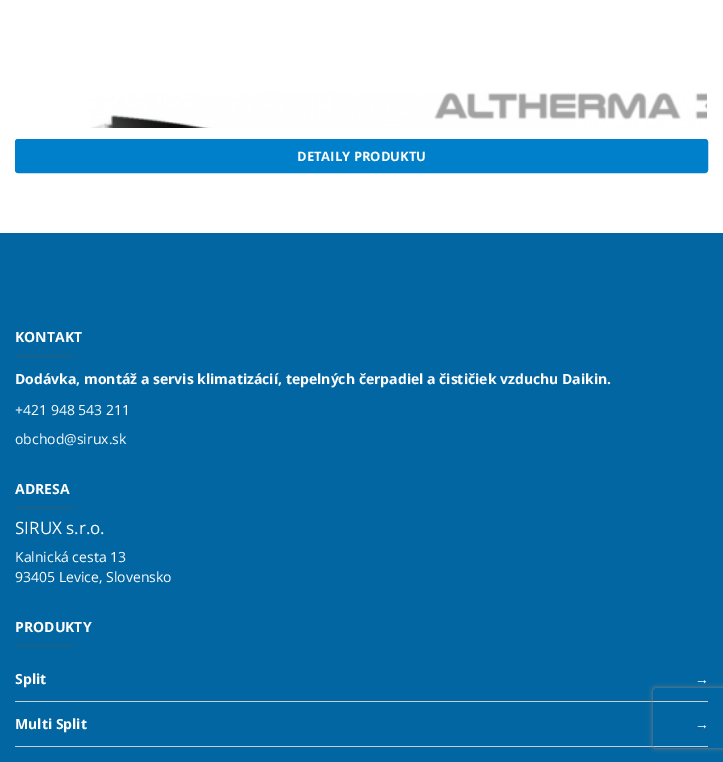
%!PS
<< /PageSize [723 762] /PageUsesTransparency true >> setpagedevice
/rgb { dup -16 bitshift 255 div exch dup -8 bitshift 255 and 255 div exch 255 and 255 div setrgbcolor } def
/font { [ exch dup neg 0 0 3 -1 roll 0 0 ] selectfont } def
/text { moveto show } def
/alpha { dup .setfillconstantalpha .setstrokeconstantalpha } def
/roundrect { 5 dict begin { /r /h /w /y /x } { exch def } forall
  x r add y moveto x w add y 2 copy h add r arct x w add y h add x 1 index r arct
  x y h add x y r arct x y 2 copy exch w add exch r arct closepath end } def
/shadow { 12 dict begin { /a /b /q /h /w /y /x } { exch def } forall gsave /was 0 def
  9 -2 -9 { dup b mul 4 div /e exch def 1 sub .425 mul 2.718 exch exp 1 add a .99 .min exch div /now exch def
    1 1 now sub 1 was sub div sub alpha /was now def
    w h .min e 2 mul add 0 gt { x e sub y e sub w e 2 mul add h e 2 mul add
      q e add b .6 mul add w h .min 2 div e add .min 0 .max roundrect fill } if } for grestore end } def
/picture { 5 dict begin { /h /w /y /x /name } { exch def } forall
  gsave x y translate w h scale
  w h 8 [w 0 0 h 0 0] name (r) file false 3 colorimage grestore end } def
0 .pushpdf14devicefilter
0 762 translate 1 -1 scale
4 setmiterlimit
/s1 { /OpenSans-Bold 13 font 16#FFFFFF rgb } def
/s2 { /OpenSans-Bold 14 font 16#FFFFFF rgb } def
/s3 { /OpenSans-Regular 14 font 16#FFFFFF rgb } def
/s4 { /OpenSans-Regular 17 font 16#FFFFFF rgb } def
/s5 { /LiberationSans-Bold 14 font 16#FFFFFF rgb } def
16#FFFFFF rgb
0 0 723 762 rectfill
(pic1.raw) 90 92 617 36 picture
16#0080CB rgb
15.5 139.5 692 33 2.5 roundrect gsave fill grestore
stroke
s1
(DETAILY PRODUKTU) 297 161 text
16#0166A1 rgb
0 233 723 529 rectfill
s2
(KONTAKT) 15 342 text
16#126392 rgb
15 354 60 3 rectfill
s2
(Dodávka, montáž a servis klimatizácií, tepelných čerpadiel a čističiek vzduchu Daikin.) 15 384 text
s3
(+421 948 543 211) 15 415 text
(obchod@sirux.sk) 15 444 text
s2
(ADRESA) 15 494 text
16#126392 rgb
15 506 60 3 rectfill
s4
(SIRUX s.r.o.) 15 534 text
s3
(Kalnická cesta 13) 15 562 text
(93405 Levice, Slovensko) 15 582 text
s2
(PRODUKTY) 15 632 text
16#126392 rgb
15 644 60 3 rectfill
16#CCCCCC rgb
15 701 693 1 rectfill
s2
(Split) 15 684 text
16#CCCCCC rgb
15 746 693 1 rectfill
gsave
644 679 moveto 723 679 lineto 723 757 lineto 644 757 lineto closepath 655 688 moveto 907 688 lineto 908 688 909 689 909 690 curveto 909 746 lineto 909 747 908 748 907 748 curveto 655 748 lineto 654 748 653 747 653 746 curveto 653 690 lineto 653 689 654 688 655 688 curveto closepath eoclip newpath
16#808080 rgb
653 688 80 60 2 2.5 1 shadow
grestore
s5
(→) 695 684 text
s2
(Multi Split) 15 729 text
s5
(→) 695 729 text
.poppdf14devicefilter showpage
